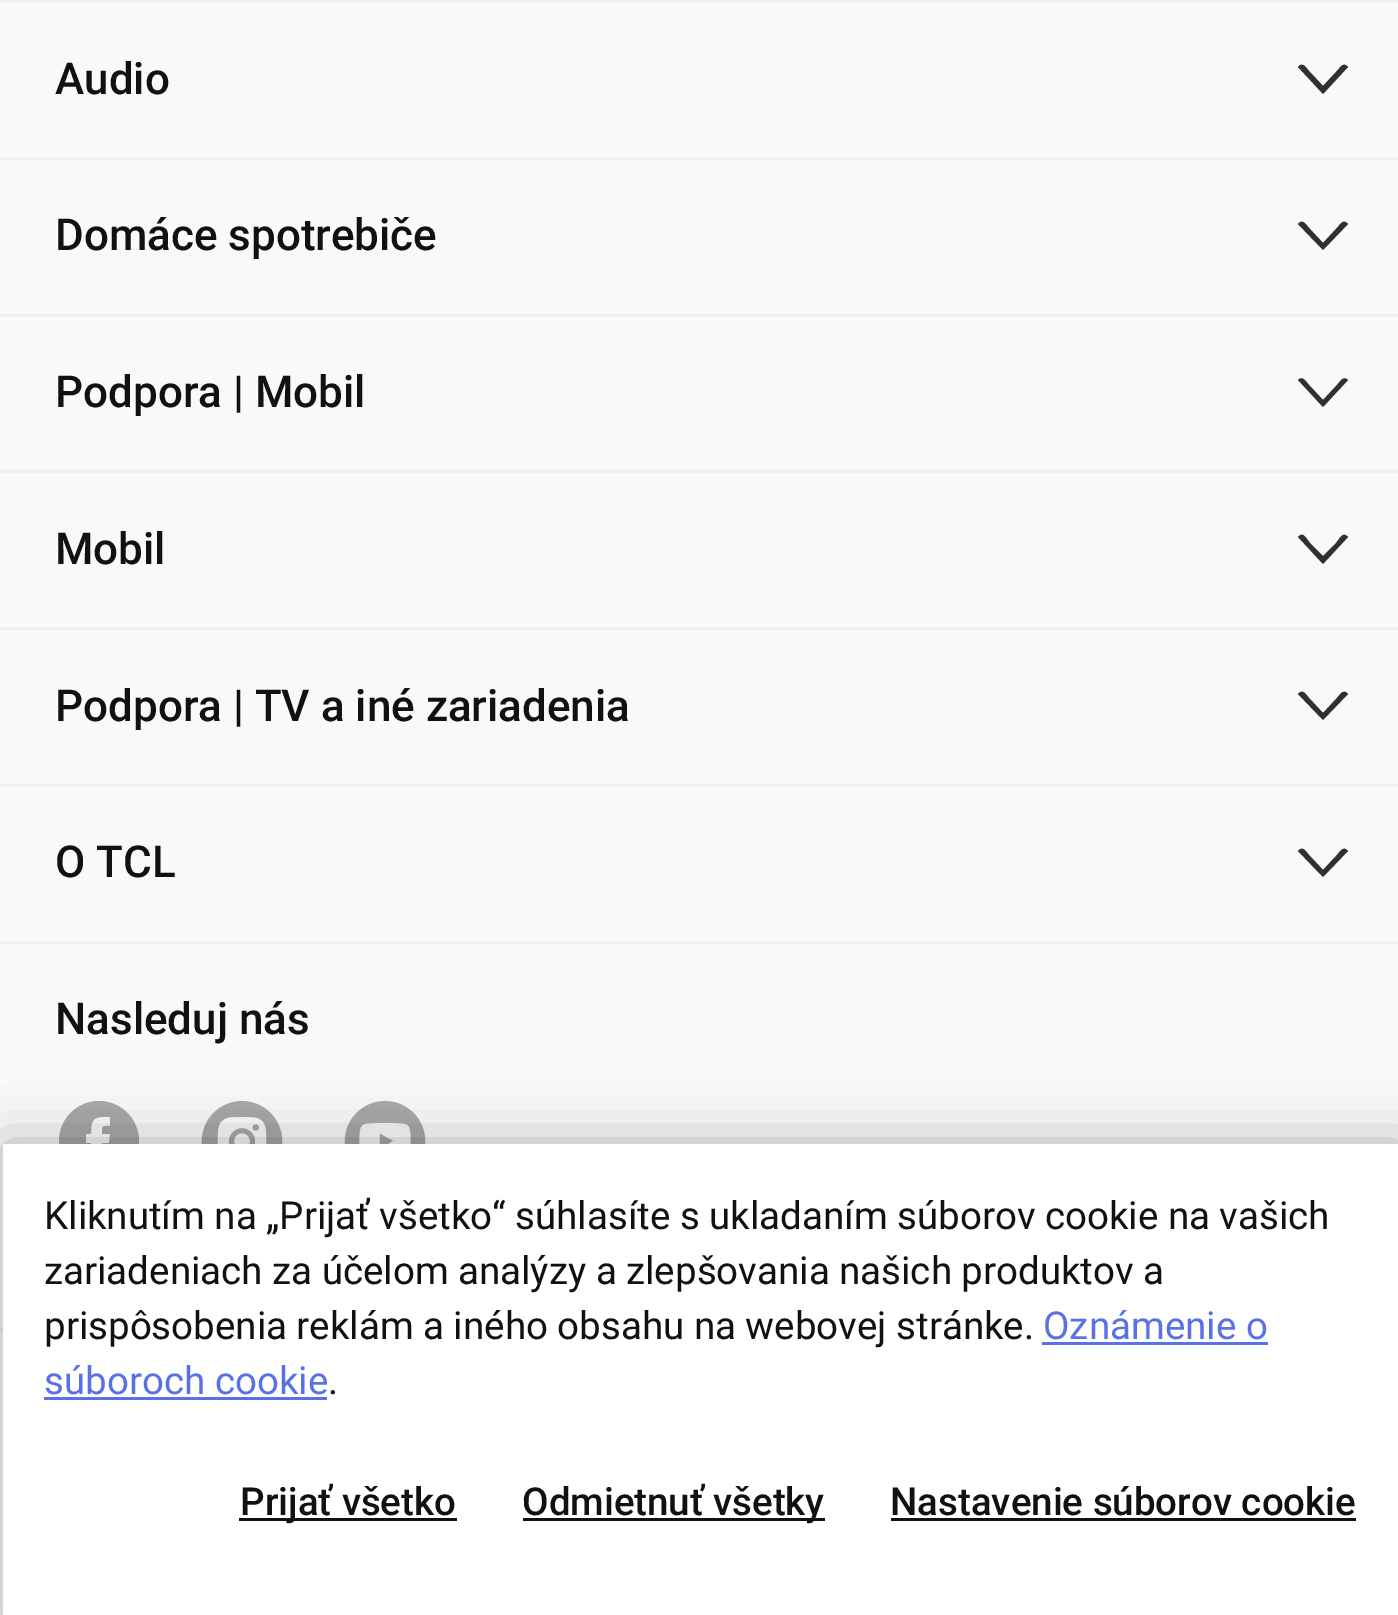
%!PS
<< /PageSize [1398 1615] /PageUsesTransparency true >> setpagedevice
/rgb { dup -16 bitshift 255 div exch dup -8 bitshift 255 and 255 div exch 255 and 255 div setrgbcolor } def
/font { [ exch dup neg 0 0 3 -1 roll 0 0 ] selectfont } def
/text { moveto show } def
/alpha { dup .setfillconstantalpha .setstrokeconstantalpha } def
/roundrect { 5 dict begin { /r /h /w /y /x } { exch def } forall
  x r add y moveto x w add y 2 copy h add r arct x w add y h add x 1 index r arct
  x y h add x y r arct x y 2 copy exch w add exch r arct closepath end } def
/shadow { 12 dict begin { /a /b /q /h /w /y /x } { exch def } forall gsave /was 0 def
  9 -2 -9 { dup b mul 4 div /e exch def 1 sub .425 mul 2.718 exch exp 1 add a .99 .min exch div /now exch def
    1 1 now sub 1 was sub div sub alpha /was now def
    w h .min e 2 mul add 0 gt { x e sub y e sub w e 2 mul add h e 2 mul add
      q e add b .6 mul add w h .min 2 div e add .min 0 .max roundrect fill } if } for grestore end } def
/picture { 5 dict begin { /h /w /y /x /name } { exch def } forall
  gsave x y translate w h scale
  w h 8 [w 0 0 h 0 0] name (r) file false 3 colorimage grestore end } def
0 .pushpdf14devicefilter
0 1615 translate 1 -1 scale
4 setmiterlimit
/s1 { /Roboto-Medium 44 font 16#111111 rgb } def
/s2 { /Roboto-Regular 38.5 font 16#111111 rgb } def
/s3 { /Roboto-Regular 38.5 font 16#5971E5 rgb } def
/s4 { /Roboto-Medium 38.5 font 16#111111 rgb } def
16#F9F9F9 rgb
0 0 1398 1615 rectfill
16#F0F0F0 rgb
0 0 1398 3 rectfill
0 157 1398 3 rectfill
s1
(Audio) 55 94 text
16#2D3132 rgb
1348 67 moveto 1343 61 1340 68 1336 72 curveto 1323 86 lineto 1310 72 lineto 1306 68 1303 61 1298 67 curveto 1323 94 lineto closepath fill
16#F0F0F0 rgb
0 314 1398 3 rectfill
s1
(Domáce spotrebiče) 55 250 text
16#2D3132 rgb
1348 224 moveto 1343 218 1340 225 1336 229 curveto 1323 243 lineto 1310 229 lineto 1306 225 1303 218 1298 224 curveto 1323 250 lineto closepath fill
16#F0F0F0 rgb
0 470 1398 3 rectfill
s1
(Podpora | Mobil) 55 407 text
16#2D3132 rgb
1348 380 moveto 1343 375 1340 382 1336 386 curveto 1323 400 lineto 1310 386 lineto 1306 382 1303 375 1298 380 curveto 1323 407 lineto closepath fill
16#F0F0F0 rgb
0 627 1398 3 rectfill
s1
(Mobil) 55 564 text
16#2D3132 rgb
1348 537 moveto 1343 531 1340 538 1336 543 curveto 1323 556 lineto 1310 543 lineto 1306 538 1303 531 1298 537 curveto 1323 564 lineto closepath fill
16#F0F0F0 rgb
0 784 1398 3 rectfill
s1
(Podpora | TV a iné zariadenia) 55 721 text
16#2D3132 rgb
1348 694 moveto 1343 688 1340 695 1336 699 curveto 1323 713 lineto 1310 699 lineto 1306 695 1303 688 1298 694 curveto 1323 720 lineto closepath fill
16#F0F0F0 rgb
0 941 1398 3 rectfill
s1
(O TCL) 55 877 text
16#2D3132 rgb
1348 851 moveto 1343 845 1340 852 1336 856 curveto 1323 870 lineto 1310 856 lineto 1306 852 1303 845 1298 851 curveto 1323 877 lineto closepath fill
s1
(Nasleduj nás) 55 1034 text
16#A7A9A9 rgb
99 1101 moveto 121 1101 139 1119 139 1141 curveto 139 1164 121 1182 99 1182 curveto 77 1182 59 1164 59 1141 curveto 59 1119 77 1101 99 1101 curveto closepath 102 1117 moveto 91 1117 91 1125 91 1134 curveto 86 1134 lineto 86 1143 lineto 91 1143 lineto 91 1169 lineto 102 1169 lineto 102 1143 lineto 109 1143 lineto 110 1134 lineto 102 1134 lineto 102 1125 102 1126 110 1126 curveto 110 1117 lineto closepath fill
(pic1.raw) 201 1100 82 44 picture
(pic2.raw) 344 1100 82 44 picture
16#EEEEEE rgb
0 1328 3 3 rectfill
16#000000 rgb
3 1144 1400 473 0 27.5 0.3 shadow
16#FFFFFF rgb
3 1144 1395 471 rectfill
s2
(Kliknutím na „Prijať všetko“ súhlasíte s ukladaním súborov cookie na vašich) 44 1229 text
(zariadeniach za účelom analýzy a zlepšovania našich produktov a) 44 1284 text
(prispôsobenia reklám a iného obsahu na webovej stránke.) 44 1339 text
s3
(Oznámenie o) 1043 1339 text
1042 1342 226 3 rectfill
(súboroch cookie) 44 1394 text
44 1397 283 3 rectfill
s2
(.) 328 1394 text
239 1518 218 3 rectfill
s4
(Prijať všetko) 240 1515 text
523 1518 302 3 rectfill
(Odmietnuť všetky) 522 1515 text
(Nastavenie súborov cookie) 890 1515 text
891 1518 465 3 rectfill
.poppdf14devicefilter showpage
